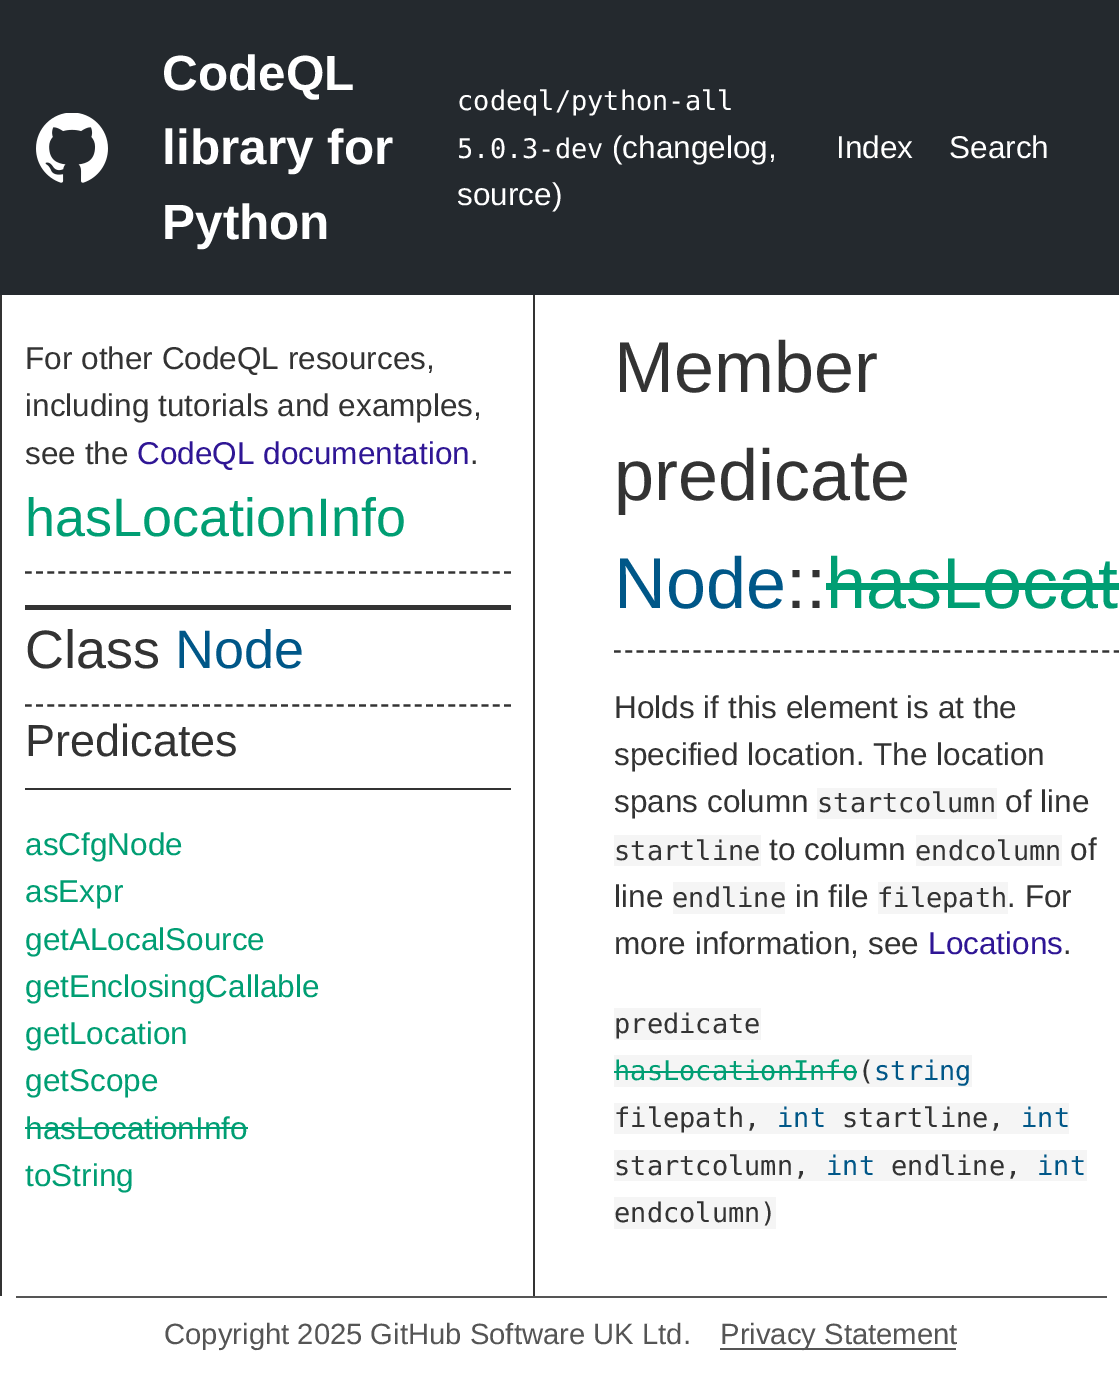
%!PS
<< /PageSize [1119 1385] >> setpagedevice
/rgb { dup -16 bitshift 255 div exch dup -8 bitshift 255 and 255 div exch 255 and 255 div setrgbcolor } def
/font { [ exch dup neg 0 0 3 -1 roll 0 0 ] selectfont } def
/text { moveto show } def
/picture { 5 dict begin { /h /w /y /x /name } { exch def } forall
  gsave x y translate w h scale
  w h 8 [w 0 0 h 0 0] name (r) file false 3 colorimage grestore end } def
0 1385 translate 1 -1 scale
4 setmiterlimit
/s1 { /LiberationSans-Bold 49.5 font 16#FFFFFF rgb } def
/s2 { /DejaVuSansMono-Regular 27 font 16#FFFFFF rgb } def
/s3 { /LiberationSans-Regular 31.5 font 16#FFFFFF rgb } def
/s4 { /LiberationSans-Regular 31.5 font 16#333333 rgb } def
/s5 { /LiberationSans-Regular 31.5 font 16#2F1695 rgb } def
/s6 { /LiberationSans-Regular 54 font 16#009E73 rgb } def
/s7 { /LiberationSans-Regular 54 font 16#333333 rgb } def
/s8 { /LiberationSans-Regular 54 font 16#005788 rgb } def
/s9 { /LiberationSans-Regular 45 font 16#333333 rgb } def
/s10 { /LiberationSans-Regular 31.5 font 16#009E73 rgb } def
/s11 { /LiberationSans-Regular 72 font 16#333333 rgb } def
/s12 { /LiberationSans-Regular 72 font 16#005788 rgb } def
/s13 { /LiberationSans-Regular 72 font 16#009E73 rgb } def
/s14 { /DejaVuSansMono-Regular 27 font 16#333333 rgb } def
/s15 { /DejaVuSansMono-Regular 27 font 16#009E73 rgb } def
/s16 { /DejaVuSansMono-Regular 27 font 16#005788 rgb } def
/s17 { /LiberationSans-Regular 29.25 font 16#555555 rgb } def
16#FFFFFF rgb
0 0 1119 1385 rectfill
16#24292E rgb
0 0 1119 295 rectfill
(pic1.raw) 36 113 72 70 picture
s1
(CodeQL) 162 90 text
(library for) 162 164 text
(Python) 162 239 text
s2
(codeql/python-all) 457 110 text
(5.0.3-dev) 457 158 text
s3
(\(changelog,) 612 158 text
(source\)) 457 205 text
(Index) 836 158 text
(Search) 949 158 text
16#333333 rgb
533 295 2 1001 rectfill
0 295 2 1001 rectfill
25 605 486 5 rectfill
(For other CodeQL resources,) 25 369 text
(including tutorials and examples,) 25 416 text
(see the) 25 464 text
s5
(CodeQL documentation) 137 464 text
s4
(.) 470 464 text
2.2 setlinewidth
[6.75 4.39] 0 setdash
25 572.5 moveto 511 572.5 lineto stroke
s6
(hasLocationInfo) 25 536 text
16#333333 rgb
25 705.5 moveto 511 705.5 lineto stroke
(Class) 25 668 text
s8
(Node) 175 668 text
16#333333 rgb
25 788 486 2 rectfill
s9
(Predicates) 25 756 text
s10
(asCfgNode) 25 855 text
(asExpr) 25 902 text
(getALocalSource) 25 950 text
(getEnclosingCallable) 25 997 text
(getLocation) 25 1044 text
(getScope) 25 1091 text
(hasLocationInfo) 25 1139 text
25 1127 223 2 rectfill
(toString) 25 1186 text
16#333333 rgb
[6.75 4.61] 0 setdash
614 651.5 moveto 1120.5 651.5 lineto stroke
s11
(Member) 614 392 text
(predicate) 614 500 text
s12
(Node) 614 608 text
s11
(::) 786 608 text
s13
(hasLocat) 826 608 text
826 583 293 7 rectfill
s4
(Holds if this element is at the) 614 718 text
(specified location. The location) 614 765 text
(spans column) 614 812 text
16#F5F5F5 rgb
817 788 180 31 rectfill
s14
(startcolumn) 817 812 text
s4
(of line) 1005 812 text
16#F5F5F5 rgb
614 835 147 31 rectfill
s14
(startline) 614 860 text
s4
(to column) 769 860 text
16#F5F5F5 rgb
916 835 146 31 rectfill
s14
(endcolumn) 915 860 text
s4
(of) 1070 860 text
(line) 614 907 text
16#F5F5F5 rgb
673 882 112 32 rectfill
s14
(endline) 672 907 text
s4
(in file) 795 907 text
16#F5F5F5 rgb
878 882 130 32 rectfill
s14
(filepath) 877 907 text
s4
(. For) 1007 907 text
(more information, see) 614 954 text
s5
(Locations) 928 954 text
s4
(.) 1063 954 text
16#F5F5F5 rgb
614 1008 147 32 rectfill
s14
(predicate) 614 1033 text
16#F5F5F5 rgb
614 1055 358 32 rectfill
s15
(hasLocationInfo) 614 1080 text
614 1071 243 2 rectfill
s14
(\() 858 1080 text
s16
(string) 874 1080 text
16#F5F5F5 rgb
614 1103 455 31 rectfill
s14
(filepath,) 614 1127 text
s16
(int) 777 1127 text
s14
(startline,) 842 1127 text
s16
(int) 1021 1127 text
16#F5F5F5 rgb
614 1150 473 31 rectfill
s14
(startcolumn,) 614 1175 text
s16
(int) 826 1175 text
s14
(endline,) 891 1175 text
s16
(int) 1037 1175 text
16#F5F5F5 rgb
614 1197 162 32 rectfill
s14
(endcolumn\)) 614 1222 text
16#555555 rgb
16 1296 1091 2 rectfill
s17
(Copyright 2025 GitHub Software UK Ltd.) 164 1344 text
720 1348 236 2 rectfill
(Privacy Statement) 720 1344 text
showpage
